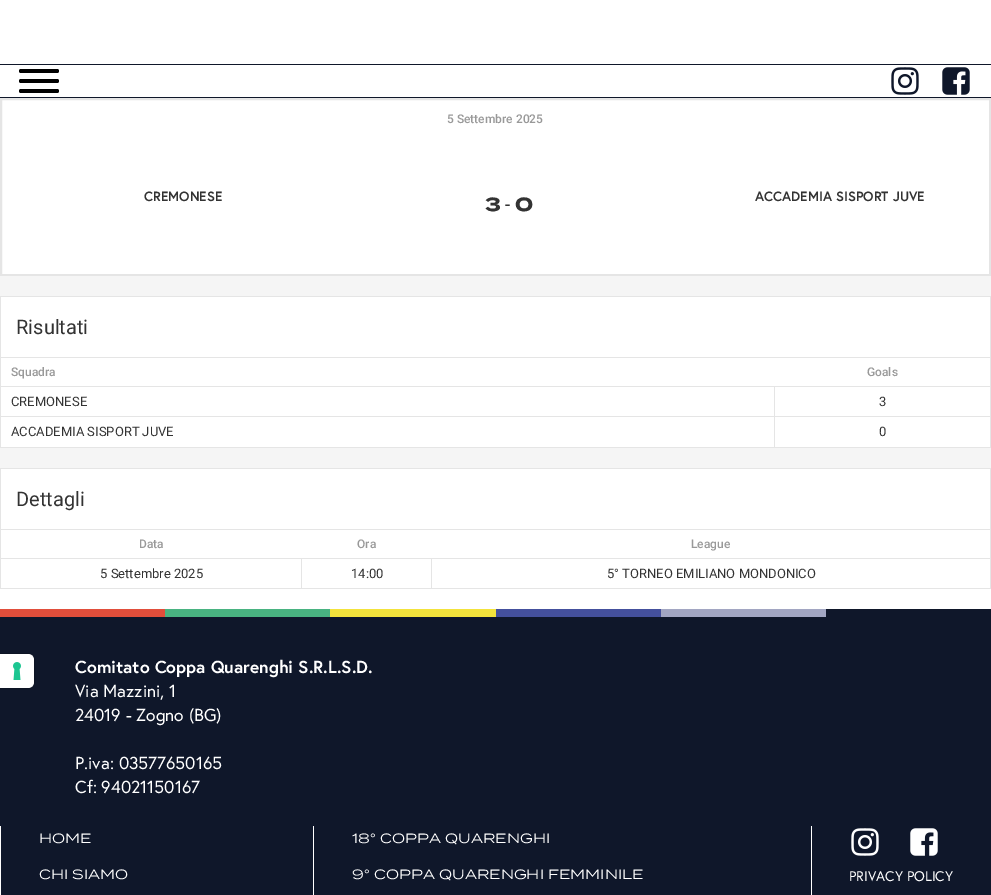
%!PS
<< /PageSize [991 895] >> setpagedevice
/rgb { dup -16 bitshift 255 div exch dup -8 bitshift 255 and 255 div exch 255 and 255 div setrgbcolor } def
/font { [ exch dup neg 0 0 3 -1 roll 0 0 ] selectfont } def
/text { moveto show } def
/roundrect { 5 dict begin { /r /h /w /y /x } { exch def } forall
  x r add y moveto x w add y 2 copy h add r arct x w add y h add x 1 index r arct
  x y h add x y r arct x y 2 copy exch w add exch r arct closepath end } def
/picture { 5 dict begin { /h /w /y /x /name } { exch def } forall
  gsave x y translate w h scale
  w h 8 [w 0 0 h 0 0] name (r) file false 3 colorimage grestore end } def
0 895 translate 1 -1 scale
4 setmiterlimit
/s1 { /Roboto-Medium 12 font 16#999999 rgb } def
/s2 { /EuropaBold-Bold 13.4 font 16#333333 rgb } def
/s3 { /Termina-Bold 19 font 16#333333 rgb } def
/s4 { /Roboto-Regular 19 font 16#333333 rgb } def
/s5 { /Roboto-Regular 20 font 16#333333 rgb } def
/s6 { /Roboto-Regular 13 font 16#333333 rgb } def
/s7 { /EuropaBold-Bold 17.4 font 16#FFFFFF rgb } def
/s8 { /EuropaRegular-Regular 17.4 font 16#FFFFFF rgb } def
/s9 { /Termina-Regular 13.4 font 16#FFFFFF rgb } def
/s10 { /EuropaRegular-Regular 14 font 16#FFFFFF rgb } def
16#FFFFFF rgb
0 0 991 895 rectfill
16#0F172A rgb
0 97 991 1 rectfill
0 64 991 1 rectfill
16#000000 rgb
19 69 40 4 2 roundrect fill
19 79 40 4 2 roundrect fill
19 89 40 4 2 roundrect fill
(pic1.raw) 891 67 28 28 picture
(pic2.raw) 942 67 28 28 picture
16#F5F5F5 rgb
0 276 991 192 rectfill
16#E5E5E5 rgb
0 98 991 1 rectfill
990 98 1 178 rectfill
0 275 991 1 rectfill
0 98 1 178 rectfill
1.5 99.5 988 175 rectstroke
s1
(5 Settembre 2025) 447 123 text
s2
(CREMONESE) 144 201 text
s3
(3) 485 211 text
s4
(-) 505 211 text
s3
(0) 515 211 text
s2
(ACCADEMIA SISPORT JUVE) 755 201 text
16#FFFFFF rgb
1 297 989 60 rectfill
16#E5E5E5 rgb
0 296 991 1 rectfill
990 296 1 61 rectfill
0 296 1 61 rectfill
s5
(Risultati) 16 334 text
16#FFFFFF rgb
1 358 989 89 rectfill
16#E5E5E5 rgb
0 357 991 1 rectfill
990 357 1 91 rectfill
0 447 991 1 rectfill
0 357 1 91 rectfill
s1
(Squadra) 11 376 text
(Goals) 867 376 text
16#E5E5E5 rgb
774 386 217 1 rectfill
774 416 217 1 rectfill
774 416 1 32 rectfill
0 416 775 1 rectfill
774 386 1 31 rectfill
0 386 775 1 rectfill
s6
(CREMONESE) 11 406 text
(3) 879 406 text
(ACCADEMIA SISPORT JUVE) 11 436 text
(0) 879 436 text
16#E5E5E5 rgb
0 468 991 1 rectfill
990 468 1 61 rectfill
0 468 1 61 rectfill
s5
(Dettagli) 16 506 text
16#E5E5E5 rgb
0 529 991 1 rectfill
990 529 1 60 rectfill
0 588 991 1 rectfill
0 529 1 60 rectfill
s1
(Data) 139 548 text
(Ora) 357 548 text
(League) 691 548 text
16#E5E5E5 rgb
431 558 560 1 rectfill
431 558 1 31 rectfill
301 558 131 1 rectfill
301 558 1 31 rectfill
0 558 302 1 rectfill
s6
(5 Settembre 2025) 100 578 text
(14:00) 351 578 text
(5° TORNEO EMILIANO MONDONICO) 607 578 text
16#E14E3B rgb
0 609 165 8 rectfill
16#49B381 rgb
165 609 165 8 rectfill
16#F3E33C rgb
330 609 166 8 rectfill
16#44509D rgb
496 609 165 8 rectfill
16#A2A6C2 rgb
661 609 165 8 rectfill
16#0F172A rgb
826 609 165 8 rectfill
0 617 991 278 rectfill
16#0D1424 rgb
-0.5 653.5 moveto 28 653.5 lineto 31.5 653.5 34.5 656.5 34.5 660 curveto 34.5 682 lineto 34.5 685.5 31.5 688.5 28 688.5 curveto -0.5 688.5 lineto closepath stroke
16#FFFFFF rgb
0 654 moveto 28 654 lineto 31.5 654 34 656.5 34 660 curveto 34 682 lineto 34 685.5 31.5 688 28 688 curveto 0 688 lineto closepath fill
(pic3.raw) 13 662 8 18 picture
s7
(Comitato Coppa Quarenghi S.R.L.S.D.) 75 673 text
s8
(Via Mazzini, 1) 75 697 text
(24019 - Zogno \(BG\)) 75 721 text
(P.iva: 03577650165) 75 769 text
(Cf: 94021150167) 75 793 text
0 826 1 69 rectfill
s9
(HOME) 39 843 text
(CHI SIAMO) 39 879 text
313 826 1 69 rectfill
(18° COPPA QUARENGHI) 352 843 text
(9° COPPA QUARENGHI FEMMINILE) 352 879 text
811 826 1 69 rectfill
(pic4.raw) 851 828 28 28 picture
(pic5.raw) 910 828 28 28 picture
s10
(PRIVACY POLICY) 849 881 text
showpage
